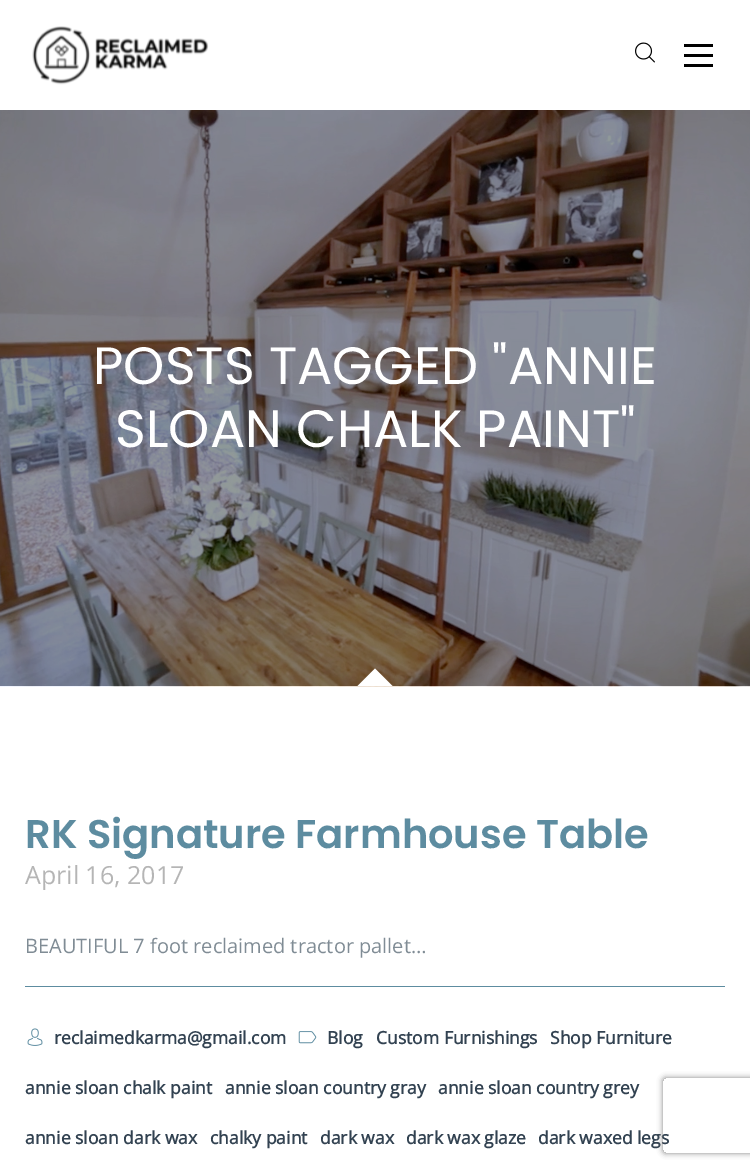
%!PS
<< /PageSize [750 1169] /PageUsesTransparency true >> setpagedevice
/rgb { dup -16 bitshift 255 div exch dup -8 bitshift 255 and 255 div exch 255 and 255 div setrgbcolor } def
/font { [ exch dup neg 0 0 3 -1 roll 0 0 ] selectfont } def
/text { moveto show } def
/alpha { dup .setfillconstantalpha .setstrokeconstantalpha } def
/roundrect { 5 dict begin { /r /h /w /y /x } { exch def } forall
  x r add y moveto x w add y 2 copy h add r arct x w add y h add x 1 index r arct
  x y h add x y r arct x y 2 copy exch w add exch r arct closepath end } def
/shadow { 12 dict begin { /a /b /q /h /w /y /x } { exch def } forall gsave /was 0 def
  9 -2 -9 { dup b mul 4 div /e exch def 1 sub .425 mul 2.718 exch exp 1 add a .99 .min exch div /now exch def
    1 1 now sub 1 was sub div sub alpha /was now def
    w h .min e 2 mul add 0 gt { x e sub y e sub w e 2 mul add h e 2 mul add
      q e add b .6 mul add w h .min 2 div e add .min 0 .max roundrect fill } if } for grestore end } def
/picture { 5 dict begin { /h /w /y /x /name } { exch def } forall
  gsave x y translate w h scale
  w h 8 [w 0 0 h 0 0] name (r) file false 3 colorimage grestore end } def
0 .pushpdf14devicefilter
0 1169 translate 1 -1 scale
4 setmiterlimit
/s1 { /Poppins-Regular 52.5 font 16#FFFFFF rgb } def
/s2 { /Poppins-SemiBold 40 font 16#5D8CA0 rgb } def
/s3 { /OpenSans-Regular 25 font 16#B5B5B5 rgb } def
/s4 { /OpenSans-Regular 20 font 16#808C95 rgb } def
/s5 { /OpenSans-Bold 17.5 font 16#324251 rgb } def
16#FFFFFF rgb
0 0 750 1169 rectfill
(pic1.raw) 32 26 177 59 picture
(pic2.raw) 635 42 20 21 picture
16#000000 rgb
684 54 29 3 rectfill
684 44 29 3 rectfill
684 64 29 3 rectfill
(pic3.raw) 0 110 750 577 picture
s1
(POSTS TAGGED "ANNIE) 93 384 text
(SLOAN CHALK PAINT") 115 447 text
gsave
25 110 700 576 rectclip
375 668.5 moveto 392.5 686 lineto 375 703.5 lineto 357.5 686 lineto closepath fill
grestore
s2
(RK Signature Farmhouse Table) 25 848 text
s3
(April 16, 2017) 25 884 text
s4
(BEAUTIFUL 7 foot reclaimed tractor pallet…) 25 953 text
16#5D8CA0 rgb
25 986 700 1 rectfill
(pic4.raw) 27 1028 16 18 picture
s5
(reclaimedkarma@gmail.com) 54 1044 text
(pic5.raw) 298 1031 19 13 picture
(Blog) 327 1044 text
(Custom Furnishings) 376 1044 text
(Shop Furniture) 550 1044 text
(annie sloan chalk paint) 25 1094 text
(annie sloan country gray) 225 1094 text
(annie sloan country grey) 438 1094 text
(annie sloan dark wax) 25 1144 text
(chalky paint) 210 1144 text
(dark wax) 320 1144 text
(dark wax glaze) 406 1144 text
(dark waxed legs) 538 1144 text
gsave
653 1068 moveto 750 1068 lineto 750 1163 lineto 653 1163 lineto closepath 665.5 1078 moveto 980.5 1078 lineto 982 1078 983 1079 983 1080.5 curveto 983 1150.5 lineto 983 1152 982 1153 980.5 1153 curveto 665.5 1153 lineto 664 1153 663 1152 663 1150.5 curveto 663 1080.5 lineto 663 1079 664 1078 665.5 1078 curveto closepath eoclip newpath
16#808080 rgb
663 1078 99 75 2.5 3 1 shadow
grestore
.poppdf14devicefilter showpage
